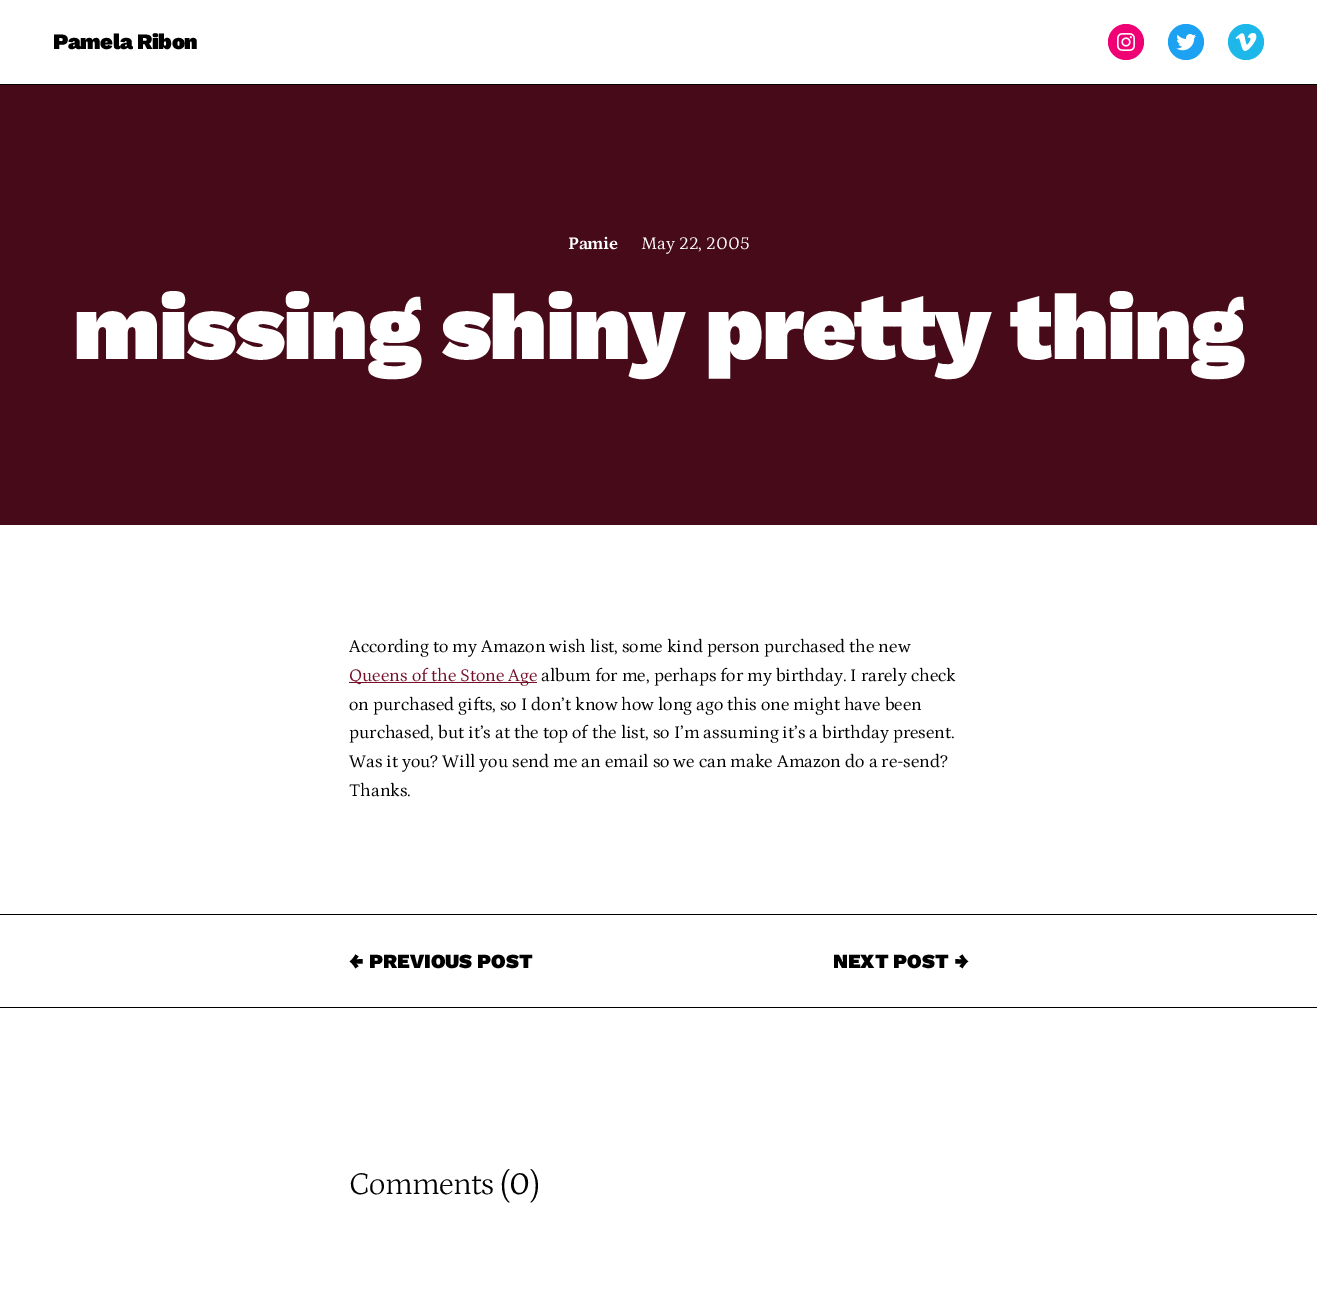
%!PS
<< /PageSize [1317 1313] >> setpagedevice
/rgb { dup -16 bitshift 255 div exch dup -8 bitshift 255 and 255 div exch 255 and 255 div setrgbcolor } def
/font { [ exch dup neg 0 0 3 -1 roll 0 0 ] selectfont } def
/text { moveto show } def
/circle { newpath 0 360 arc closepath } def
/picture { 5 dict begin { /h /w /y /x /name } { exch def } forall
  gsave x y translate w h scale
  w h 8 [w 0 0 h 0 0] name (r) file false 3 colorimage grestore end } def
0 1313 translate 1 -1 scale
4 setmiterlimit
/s1 { /Petrona-Regular 18 font 16#FFFFFF rgb } def
/s2 { /Petrona-Regular 18 font 16#000000 rgb } def
/s3 { /Petrona-Regular 18 font 16#761028 rgb } def
/s4 { /WorkSans-Black 20 font 16#000000 rgb } def
/s5 { /Petrona-Regular 32 font 16#000000 rgb } def
16#FFFFFF rgb
0 0 1317 1313 rectfill
/WorkSans-Black 22 font
16#000000 rgb
53 49 moveto -0.5 0 (Pamela Ribon) ashow
16#F00075 rgb
1126 42 18 circle fill
(pic1.raw) 1117 33 18 18 picture
16#1DA1F2 rgb
1186 42 18 circle fill
(pic2.raw) 1176 34 20 17 picture
16#1EB7EA rgb
1246 42 18 circle fill
(pic3.raw) 1235 33 22 18 picture
16#000000 rgb
0 84 1317 1 rectfill
16#470A18 rgb
0 85 1317 440 rectfill
/Petrona-Bold 18 font
16#FFFFFF rgb
568 249 moveto -0.5 0 (Pamie) ashow
s1
(May 22, 2005) 641 249 text
/WorkSans-Black 94 font
73 359 moveto -1.9 0 (missing shiny pretty thing) ashow
s2
(According to my Amazon wish list, some kind person purchased the new) 349 652 text
16#761028 rgb
349 682 188 1 rectfill
(Queens of the Stone Age) 349 681 text
s2
(album for me, perhaps for my birthday. I rarely check) 541 681 text
(on purchased gifts, so I don’t know how long ago this one might have been) 349 710 text
(purchased, but it’s at the top of the list, so I’m assuming it’s a birthday present.) 349 738 text
(Was it you? Will you send me an email so we can make Amazon do a re-send?) 349 767 text
(Thanks.) 349 796 text
0 914 1317 1 rectfill
0 1007 1317 1 rectfill
s4
(← PREVIOUS POST) 349 968 text
(NEXT POST →) 833 968 text
/Petrona-Light 32 font
349 1194 moveto -0.6 0 (Comments \() ashow
s5
(0) 509 1194 text
/Petrona-Light 32 font
530 1194 moveto -0.6 0 (\)) ashow
showpage
